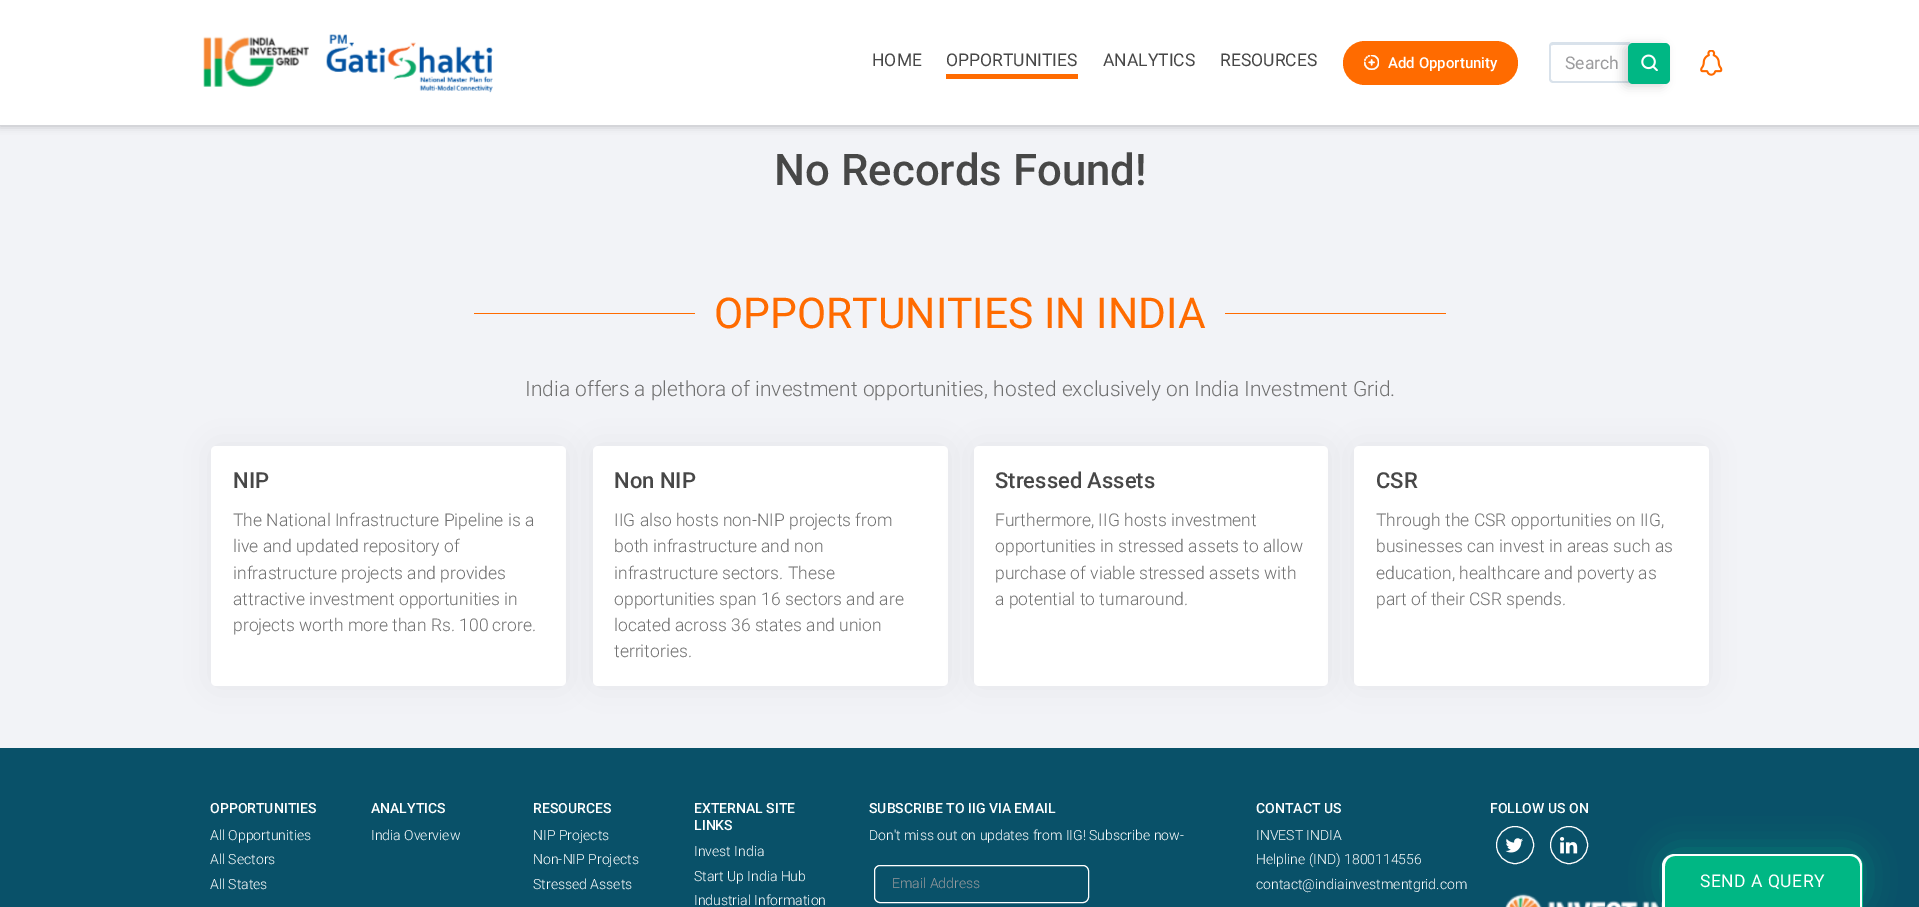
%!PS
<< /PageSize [1919 907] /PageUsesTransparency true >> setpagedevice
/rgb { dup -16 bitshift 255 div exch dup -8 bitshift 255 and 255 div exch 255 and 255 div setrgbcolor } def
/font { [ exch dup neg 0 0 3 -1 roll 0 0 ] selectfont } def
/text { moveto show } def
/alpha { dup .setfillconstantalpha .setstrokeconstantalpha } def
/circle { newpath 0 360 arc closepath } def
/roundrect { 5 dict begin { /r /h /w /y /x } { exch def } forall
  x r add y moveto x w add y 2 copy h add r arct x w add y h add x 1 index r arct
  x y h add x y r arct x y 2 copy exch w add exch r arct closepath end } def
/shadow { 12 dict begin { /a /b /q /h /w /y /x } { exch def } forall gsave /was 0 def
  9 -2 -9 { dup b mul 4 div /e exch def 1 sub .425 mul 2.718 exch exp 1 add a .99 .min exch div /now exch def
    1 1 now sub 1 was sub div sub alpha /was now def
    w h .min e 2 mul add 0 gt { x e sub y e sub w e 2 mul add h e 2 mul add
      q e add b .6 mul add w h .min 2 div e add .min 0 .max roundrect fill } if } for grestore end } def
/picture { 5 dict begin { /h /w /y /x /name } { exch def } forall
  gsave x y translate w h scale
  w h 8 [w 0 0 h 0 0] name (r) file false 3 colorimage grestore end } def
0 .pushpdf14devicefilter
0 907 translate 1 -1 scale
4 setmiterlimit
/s1 { /Roboto-Regular 17.5 font 16#474747 rgb } def
/s2 { /Roboto-Medium 15 font 16#FFFFFF rgb } def
/s3 { /Roboto-Regular 17.5 font 16#9B9B9D rgb } def
/s4 { /Roboto-Medium 43.75 font 16#474747 rgb } def
/s5 { /Roboto-Regular 42.5 font 16#FF6B00 rgb } def
/s6 { /Roboto-Light 21 font 16#707070 rgb } def
/s7 { /Roboto-Medium 22 font 16#474747 rgb } def
/s8 { /Roboto-Light 17.5 font 16#707070 rgb } def
/s9 { /Roboto-Medium 14 font 16#FFFFFF rgb } def
/s10 { /Roboto-Light 14 font 16#FFFFFF rgb } def
/s11 { /Roboto-Light 14 font 16#9B9B9D rgb } def
16#F2F3F7 rgb
0 0 1919 907 rectfill
16#202124 rgb
0 1 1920 125 0 4 0.28 shadow
16#FFFFFF rgb
0 0 1919 125 rectfill
(pic1.raw) 203 36 106 51 picture
(pic2.raw) 326 34 167 59 picture
s1
(HOME) 872 66 text
16#FF6B00 rgb
946 74 132 5 rectfill
s1
(OPPORTUNITIES) 946 66 text
(ANALYTICS) 1103 66 text
(RESOURCES) 1220 66 text
16#FF6B00 rgb
1343 41 175 44 22 roundrect fill
(pic3.raw) 1364 55 15 15 picture
s2
(Add Opportunity) 1388 68 text
16#D9E2EB rgb
1553 42 moveto 1630 42 lineto 1630 83 lineto 1553 83 lineto 1551 83 1549 81 1549 79 curveto 1549 46 lineto 1549 44 1551 42 1553 42 curveto closepath 1553 45 moveto 1630 45 lineto 1630 81 lineto 1553 81 lineto 1552 81 1551 80 1551 79 curveto 1551 46 lineto 1551 45 1552 45 1553 45 curveto closepath eofill
s3
(Search) 1565 69 text
16#000000 rgb
1623 45 42 41 5 5 0.17 shadow
16#00B784 rgb
1628 43 42 41 5 roundrect fill
(pic4.raw) 1641 54 17 17 picture
(pic5.raw) 1700 50 23 26 picture
s4
(No Records Found!) 774 185 text
16#FF6B00 rgb
474 313 972 1 rectfill
16#F2F3F7 rgb
695 313 530 1 rectfill
s5
(OPPORTUNITIES IN INDIA) 714 328 text
s6
(India offers a plethora of investment opportunities, hosted exclusively on India Investment Grid.) 525 396 text
16#000000 rgb
211 446 355 240 5 16 0.05 shadow
16#FFFFFF rgb
211 446 355 240 5 roundrect fill
s7
(NIP) 233 488 text
s8
(The National Infrastructure Pipeline is a) 233 526 text
(live and updated repository of) 233 552 text
(infrastructure projects and provides) 233 579 text
(attractive investment opportunities in) 233 605 text
(projects worth more than Rs. 100 crore.) 233 631 text
16#000000 rgb
593 446 355 240 5 16 0.05 shadow
16#FFFFFF rgb
593 446 355 240 5 roundrect fill
s7
(Non NIP) 614 488 text
s8
(IIG also hosts non-NIP projects from) 614 526 text
(both infrastructure and non) 614 552 text
(infrastructure sectors. These) 614 579 text
(opportunities span 16 sectors and are) 614 605 text
(located across 36 states and union) 614 631 text
(territories.) 614 657 text
16#000000 rgb
974 446 354 240 5 16 0.05 shadow
16#FFFFFF rgb
974 446 354 240 5 roundrect fill
s7
(Stressed Assets) 995 488 text
s8
(Furthermore, IIG hosts investment) 995 526 text
(opportunities in stressed assets to allow) 995 552 text
(purchase of viable stressed assets with) 995 579 text
(a potential to turnaround.) 995 605 text
16#000000 rgb
1354 446 355 240 5 16 0.05 shadow
16#FFFFFF rgb
1354 446 355 240 5 roundrect fill
s7
(CSR) 1376 488 text
s8
(Through the CSR opportunities on IIG,) 1376 526 text
(businesses can invest in areas such as) 1376 552 text
(education, healthcare and poverty as) 1376 579 text
(part of their CSR spends.) 1376 605 text
16#095169 rgb
0 748 1919 159 rectfill
s9
(OPPORTUNITIES) 210 813 text
s10
(All Opportunities) 210 840 text
(All Sectors) 210 864 text
(All States) 210 889 text
s9
(ANALYTICS) 371 813 text
s10
(India Overview) 371 840 text
s9
(RESOURCES) 533 813 text
s10
(NIP Projects) 533 840 text
(Non-NIP Projects) 533 864 text
(Stressed Assets) 533 889 text
s9
(EXTERNAL SITE) 694 813 text
(LINKS) 694 830 text
s10
(Invest India) 694 856 text
(Start Up India Hub) 694 881 text
(Industrial Information) 694 905 text
s9
(SUBSCRIBE TO IIG VIA EMAIL) 869 813 text
s10
(Don't miss out on updates from IIG! Subscribe now-) 869 840 text
874.5 865.5 214 37 5.5 roundrect stroke
s11
(Email Address) 892 888 text
s9
(CONTACT US) 1256 813 text
s10
(INVEST INDIA) 1256 840 text
(Helpline \(IND\) 1800114556) 1256 864 text
(contact@indiainvestmentgrid.com) 1256 889 text
s9
(FOLLOW US ON) 1490 813 text
1515 845 18.5 circle stroke
(pic6.raw) 1505 838 18 15 picture
1569 845 18.5 circle stroke
(pic7.raw) 1560 837 18 17 picture
(pic8.raw) 1505 893 157 14 picture
16#00B784 rgb
1663 851 200 54 13 15.5 0.43 shadow
1676 854 moveto 1850 854 lineto 1857 854 1863 860 1863 867 curveto 1863 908 lineto 1663 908 lineto 1663 867 lineto 1663 860 1669 854 1676 854 curveto closepath fill
16#FFFFFF rgb
1675 854 moveto 1850 854 lineto 1857 854 1862 859 1862 866 curveto 1862 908 lineto 1662 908 lineto 1662 866 lineto 1662 859 1668 854 1675 854 curveto closepath 1675 856 moveto 1850 856 lineto 1856 856 1860 861 1860 866 curveto 1860 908 lineto 1665 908 lineto 1665 866 lineto 1665 861 1669 856 1675 856 curveto closepath eofill
/Roboto-Regular 17.5 font
1700 887 moveto 0.5 0 (SEND A QUERY) ashow
.poppdf14devicefilter showpage
